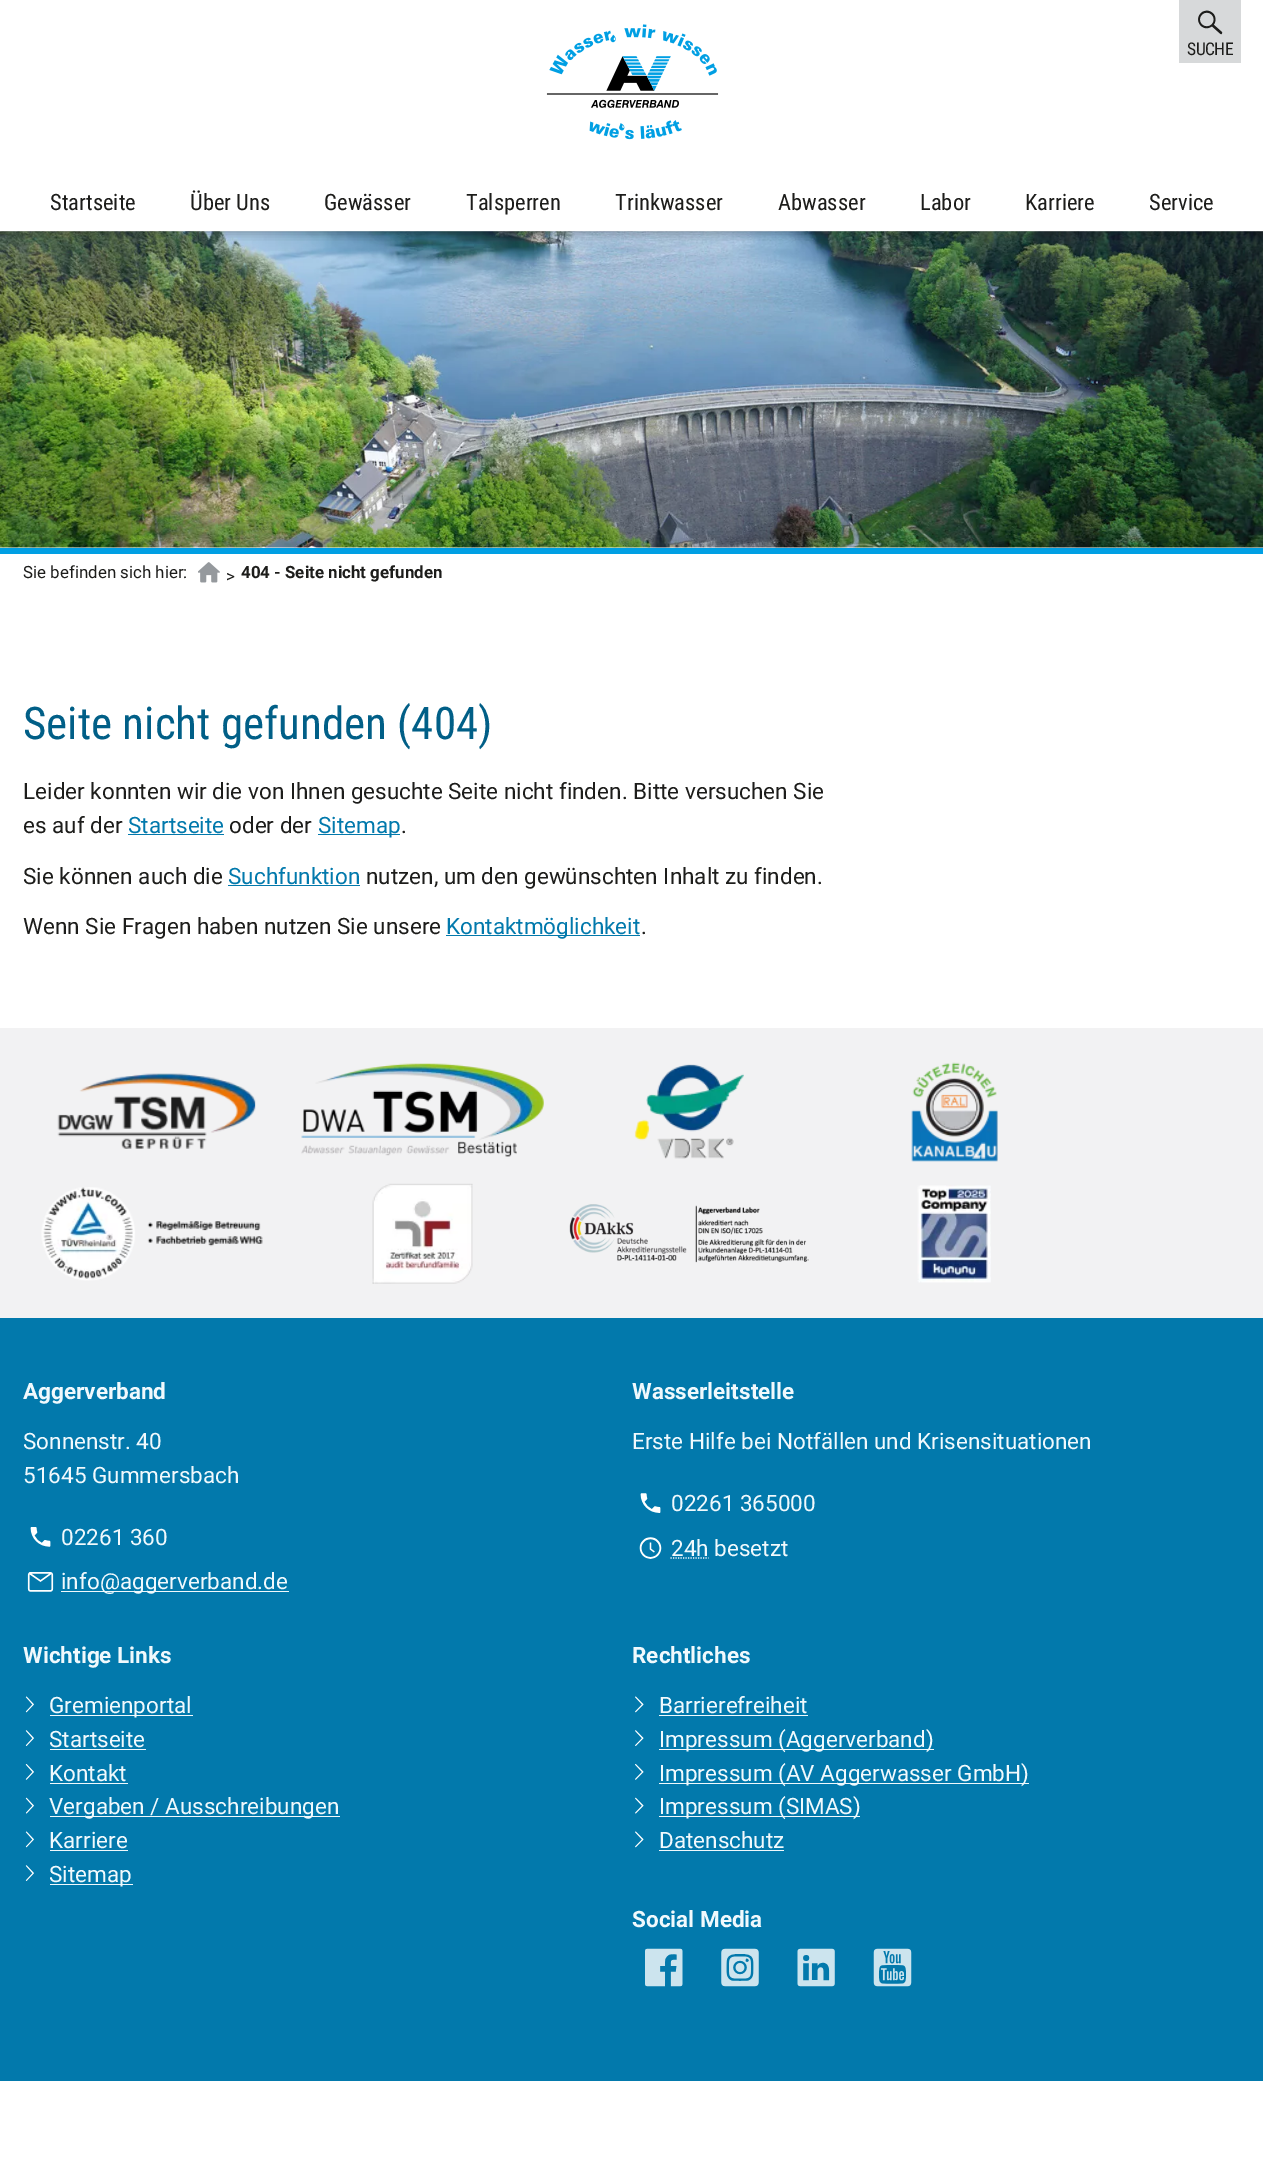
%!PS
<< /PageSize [1263 2175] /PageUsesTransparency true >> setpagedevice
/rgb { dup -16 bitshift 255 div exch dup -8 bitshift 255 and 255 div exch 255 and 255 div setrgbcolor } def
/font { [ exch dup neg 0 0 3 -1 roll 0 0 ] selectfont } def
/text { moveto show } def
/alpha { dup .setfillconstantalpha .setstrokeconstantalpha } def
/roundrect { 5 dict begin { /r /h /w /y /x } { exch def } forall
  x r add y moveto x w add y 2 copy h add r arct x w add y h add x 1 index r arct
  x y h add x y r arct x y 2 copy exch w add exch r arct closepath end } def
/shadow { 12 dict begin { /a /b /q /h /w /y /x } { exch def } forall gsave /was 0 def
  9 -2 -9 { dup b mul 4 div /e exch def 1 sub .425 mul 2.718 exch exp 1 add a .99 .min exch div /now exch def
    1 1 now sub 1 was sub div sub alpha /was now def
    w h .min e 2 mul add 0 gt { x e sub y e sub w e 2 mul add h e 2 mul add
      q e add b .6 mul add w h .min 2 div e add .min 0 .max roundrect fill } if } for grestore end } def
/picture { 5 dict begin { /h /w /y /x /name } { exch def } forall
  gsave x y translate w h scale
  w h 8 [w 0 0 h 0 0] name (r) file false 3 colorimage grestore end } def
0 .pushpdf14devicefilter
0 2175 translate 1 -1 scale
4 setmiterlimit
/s1 { /RobotoCondensed-Regular 22.5 font 16#1D1D1B rgb } def
/s2 { /Roboto-Regular 16.9 font 16#1D1D1B rgb } def
/s3 { /Roboto-Bold 16.9 font 16#1D1D1B rgb } def
/s4 { /RobotoCondensed-Regular 45 font 16#015F87 rgb } def
/s5 { /Roboto-Regular 22.5 font 16#1D1D1B rgb } def
/s6 { /Roboto-Regular 22.5 font 16#0279AC rgb } def
/s7 { /Roboto-Bold 22.5 font 16#F0F9FD rgb } def
/s8 { /Roboto-Regular 22.5 font 16#F0F9FD rgb } def
16#FFFFFF rgb
0 0 1263 2175 rectfill
(pic3.raw) 0 231 1263 317 picture
gsave
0 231 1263 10 rectclip
16#000000 rgb
0 3 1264 231 0 5 0.25 shadow
grestore
(pic1.raw) 546 24 173 116 picture
16#D7D9DA rgb
1179 0 62 63 rectfill
(pic2.raw) 1198 10 25 25 picture
/RobotoCondensed-Regular 17.5 font
16#1D1D1B rgb
1187 55 moveto -0.5 0 (SUCHE) ashow
s1
(Startseite) 50 210 text
(Über Uns) 190 210 text
(Gewässer) 324 210 text
(Talsperren) 466 210 text
(Trinkwasser) 615 210 text
(Abwasser) 778 210 text
(Labor) 920 210 text
(Karriere) 1025 210 text
(Service) 1149 210 text
16#009FE3 rgb
0 548 1263 6 rectfill
s2
(Sie befinden sich hier:) 23 578 text
(pic4.raw) 198 562 22 21 picture
(>) 226 582 text
s3
(404 - Seite nicht gefunden) 241 578 text
s4
(Seite nicht gefunden \(404\)) 23 739 text
s5
(Leider konnten wir die von Ihnen gesuchte Seite nicht finden. Bitte versuchen Sie) 23 799 text
(es auf der) 23 833 text
s6
(Startseite) 128 833 text
128 834 96 1 rectfill
s5
(oder der) 229 833 text
16#0279AC rgb
318 834 82 1 rectfill
(Sitemap) 318 833 text
s5
(.) 401 833 text
(Sie können auch die) 23 884 text
s6
(Suchfunktion) 228 884 text
228 885 132 1 rectfill
s5
(nutzen, um den gewünschten Inhalt zu finden.) 366 884 text
(Wenn Sie Fragen haben nutzen Sie unsere) 23 934 text
16#0279AC rgb
446 935 194 1 rectfill
(Kontaktmöglichkeit) 446 934 text
s5
(.) 641 934 text
16#F2F2F3 rgb
0 1028 1263 290 rectfill
(pic5.raw) 57 1073 199 76 picture
(pic6.raw) 301 1063 243 94 picture
(pic7.raw) 634 1064 110 95 picture
(pic8.raw) 911 1062 87 100 picture
(pic9.raw) 41 1187 222 94 picture
(pic10.raw) 372 1183 101 101 picture
(pic11.raw) 569 1204 240 59 picture
(pic12.raw) 917 1185 74 98 picture
16#0279AC rgb
0 1318 1263 763 rectfill
s7
(Aggerverband) 23 1399 text
s8
(Sonnenstr. 40) 23 1449 text
(51645 Gummersbach) 23 1483 text
(pic13.raw) 30 1527 21 20 picture
(02261 360) 61 1545 text
(pic14.raw) 27 1572 27 20 picture
61 1591 228 1 rectfill
(info@aggerverband.de) 61 1589 text
s7
(Wasserleitstelle) 632 1399 text
s8
(Erste Hilfe bei Notfällen und Krisensituationen) 632 1449 text
(pic15.raw) 640 1493 21 20 picture
(02261 365000) 671 1511 text
(pic16.raw) 639 1537 23 22 picture
(24h besetzt) 671 1556 text
1.2 setlinewidth
[1.25 1.25] 0 setdash
670.5 1558 moveto 708.5 1558 lineto stroke
s7
(Wichtige Links) 23 1663 text
(pic17.raw) 25 1696 9 17 picture
50 1715 143 1 rectfill
s8
(Gremienportal) 49 1713 text
(pic18.raw) 25 1730 9 16 picture
(Startseite) 49 1747 text
50 1749 96 1 rectfill
(pic19.raw) 25 1764 9 16 picture
(Kontakt) 49 1781 text
50 1783 78 1 rectfill
(pic20.raw) 25 1797 9 17 picture
50 1816 290 1 rectfill
(Vergaben / Ausschreibungen) 49 1814 text
(pic17.raw) 25 1831 9 17 picture
(Karriere) 49 1848 text
50 1850 78 1 rectfill
(pic18.raw) 25 1865 9 16 picture
50 1884 83 1 rectfill
(Sitemap) 49 1882 text
s7
(Rechtliches) 632 1663 text
(pic21.raw) 635 1696 9 17 picture
s8
(Barrierefreiheit) 659 1713 text
659 1715 149 1 rectfill
(pic22.raw) 635 1730 9 16 picture
659 1749 275 1 rectfill
(Impressum \(Aggerverband\)) 659 1747 text
(pic23.raw) 635 1764 9 16 picture
659 1783 370 1 rectfill
(Impressum \(AV Aggerwasser GmbH\)) 659 1781 text
(pic24.raw) 635 1797 9 17 picture
659 1816 201 1 rectfill
(Impressum \(SIMAS\)) 659 1814 text
(pic21.raw) 635 1831 9 17 picture
(Datenschutz) 659 1848 text
659 1850 125 1 rectfill
s7
(Social Media) 632 1927 text
(pic25.raw) 645 1948 38 39 picture
(pic26.raw) 721 1948 38 39 picture
(pic27.raw) 797 1948 38 39 picture
(pic28.raw) 873 1948 39 39 picture
.poppdf14devicefilter showpage
